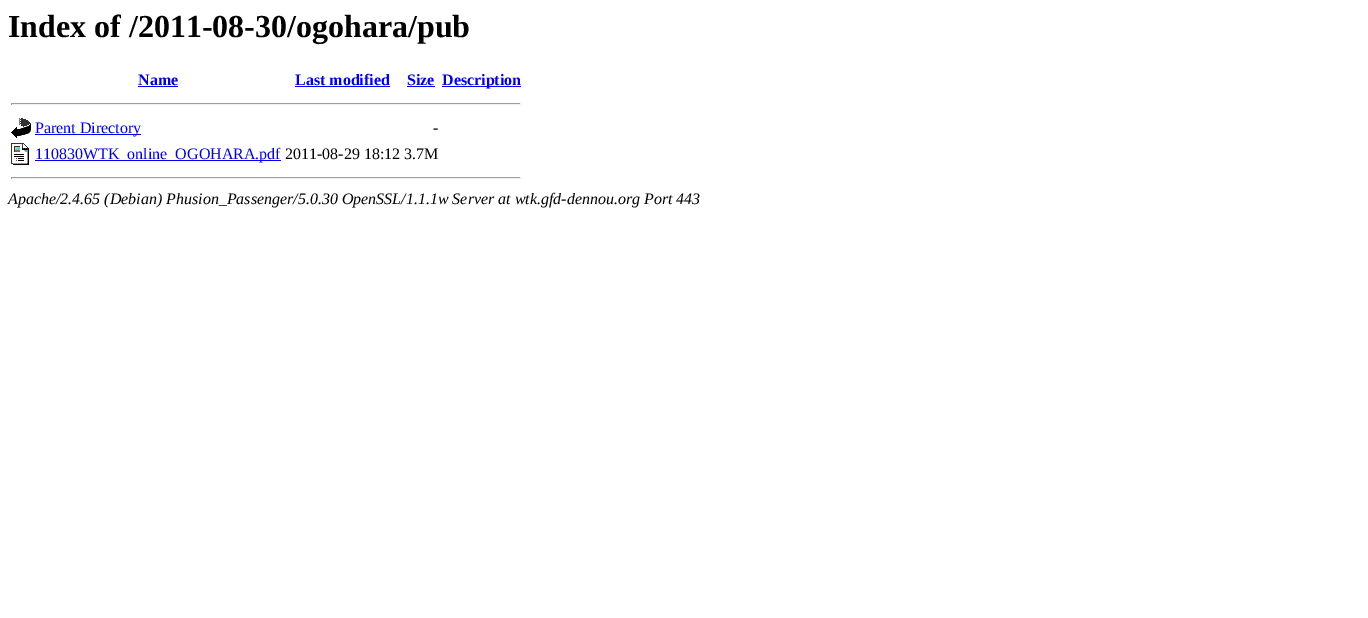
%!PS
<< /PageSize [1368 618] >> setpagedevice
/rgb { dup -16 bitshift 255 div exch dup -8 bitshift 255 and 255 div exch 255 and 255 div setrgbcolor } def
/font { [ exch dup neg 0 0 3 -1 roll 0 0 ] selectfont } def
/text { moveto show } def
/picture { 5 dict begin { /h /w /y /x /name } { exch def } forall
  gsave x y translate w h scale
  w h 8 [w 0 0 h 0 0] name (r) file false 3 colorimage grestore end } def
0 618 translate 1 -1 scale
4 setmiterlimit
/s1 { /LiberationSerif-Bold 32 font 16#000000 rgb } def
/s2 { /LiberationSerif-Bold 16 font 16#0000EE rgb } def
/s3 { /LiberationSerif-Regular 16 font 16#0000EE rgb } def
/s4 { /LiberationSerif-Regular 16 font 16#000000 rgb } def
/s5 { /LiberationSerif-Italic 16 font 16#000000 rgb } def
16#FFFFFF rgb
0 0 1368 618 rectfill
s1
(Index of /2011-08-30/ogohara/pub) 8 37 text
s2
(Name) 138 85 text
138 86 40 1 rectfill
(Last modified) 295 85 text
295 86 95 1 rectfill
(Size) 407 85 text
407 86 28 1 rectfill
442 86 79 1 rectfill
(Description) 442 85 text
16#9F9F9F rgb
11 103 510 1 rectfill
16#EEEEEE rgb
520 103 1 2 rectfill
11 104 510 1 rectfill
16#9F9F9F rgb
11 103 1 2 rectfill
(pic1.raw) 11 118 20 20 picture
16#0000EE rgb
35 134 106 1 rectfill
s3
(Parent Directory) 35 133 text
s4
(-) 433 133 text
(pic2.raw) 11 143 18 22 picture
16#0000EE rgb
35 160 246 1 rectfill
(110830WTK_online_OGOHARA.pdf) 35 159 text
s4
(2011-08-29 18:12 3.7M) 285 159 text
16#9F9F9F rgb
11 177 510 1 rectfill
16#EEEEEE rgb
520 177 1 2 rectfill
11 178 510 1 rectfill
16#9F9F9F rgb
11 177 1 2 rectfill
s5
(Apache/2.4.65 \(Debian\) Phusion_Passenger/5.0.30 OpenSSL/1.1.1w Server at wtk.gfd-dennou.org Port 443) 8 204 text
showpage
